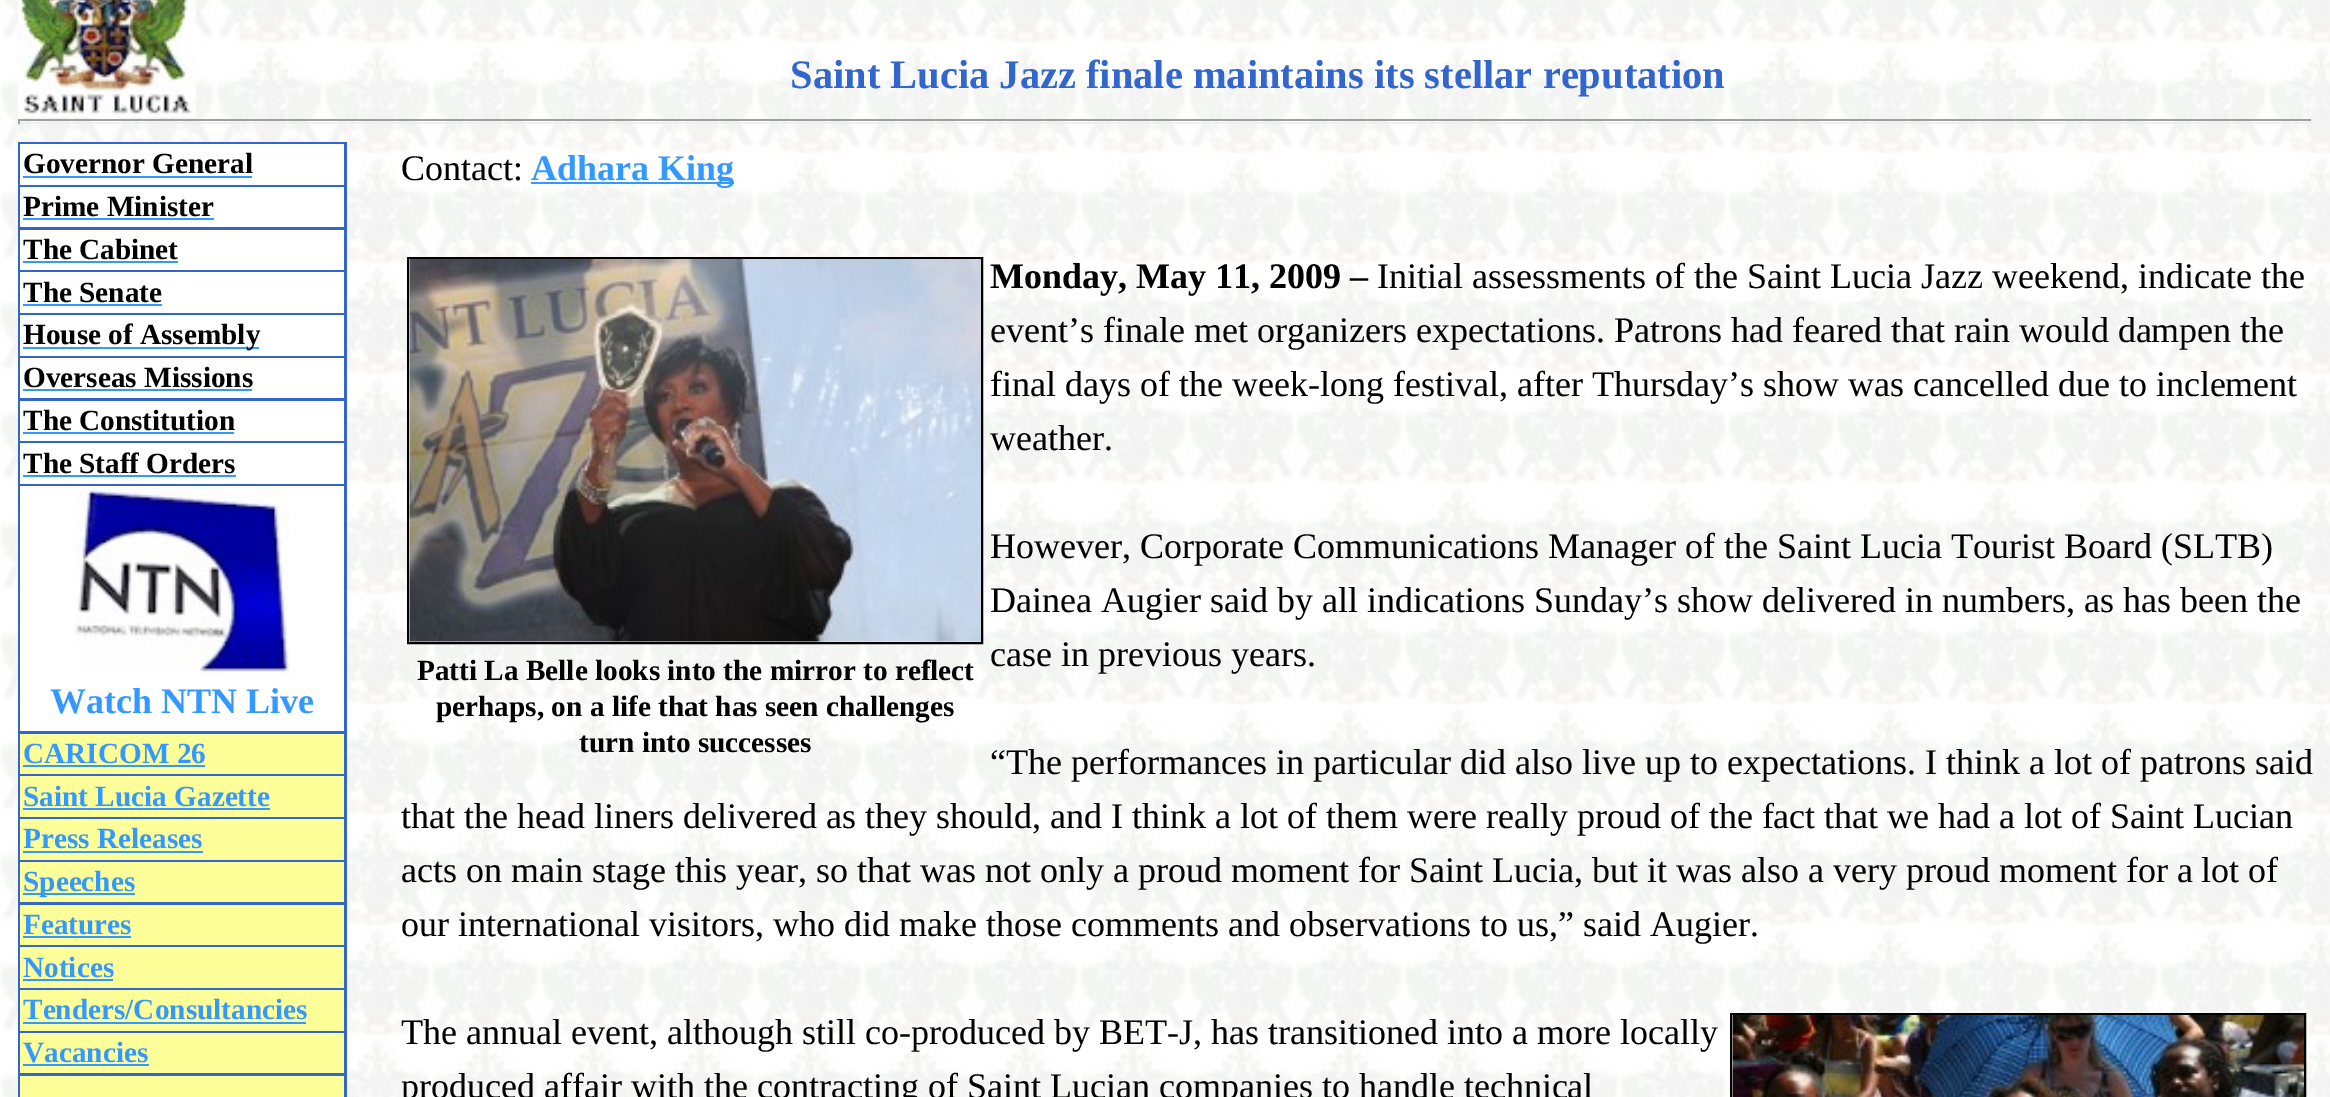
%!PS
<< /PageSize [2330 1097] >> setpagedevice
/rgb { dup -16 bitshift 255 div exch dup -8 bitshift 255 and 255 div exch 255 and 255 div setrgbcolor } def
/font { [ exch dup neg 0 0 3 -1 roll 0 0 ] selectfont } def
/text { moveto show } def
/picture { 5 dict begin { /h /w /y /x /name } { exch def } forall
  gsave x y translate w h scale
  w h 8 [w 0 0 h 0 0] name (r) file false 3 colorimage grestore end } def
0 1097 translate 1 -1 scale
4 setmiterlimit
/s1 { /LiberationSerif-Bold 40.5 font 16#3366CC rgb } def
/s2 { /LiberationSerif-Bold 29.25 font 16#000000 rgb } def
/s3 { /LiberationSerif-Bold 36 font 16#3399FF rgb } def
/s4 { /LiberationSerif-Bold 29.25 font 16#3399FF rgb } def
/s5 { /LiberationSerif-Regular 36 font 16#000000 rgb } def
/s6 { /LiberationSerif-Bold 36 font 16#000000 rgb } def
16#FFFFFF rgb
0 0 2330 1097 rectfill
(pic1.raw) 0 0 2330 1097 picture
(pic2.raw) 18 0 178 118 picture
s1
(Saint Lucia Jazz finale maintains its stellar reputation) 790 88 text
16#9F9F9F rgb
18 119 2295 2 rectfill
16#EEEEEE rgb
2311 119 2 5 rectfill
18 122 2295 2 rectfill
16#9F9F9F rgb
18 119 2 5 rectfill
16#3366CC rgb
18 142 329 955 rectfill
16#FFFFFF rgb
20 144 324 41 rectfill
s2
(Governor General) 23 173 text
16#3399FF rgb
23 176 229 2 rectfill
16#FFFFFF rgb
20 187 324 40 rectfill
s2
(Prime Minister) 23 216 text
16#3399FF rgb
23 218 191 2 rectfill
16#FFFFFF rgb
20 230 324 40 rectfill
s2
(The Cabinet) 23 259 text
16#3399FF rgb
23 261 155 2 rectfill
16#FFFFFF rgb
20 272 324 41 rectfill
s2
(The Senate) 23 302 text
16#3399FF rgb
23 304 139 2 rectfill
16#FFFFFF rgb
20 315 324 41 rectfill
16#3399FF rgb
23 347 236 2 rectfill
s2
(House of Assembly) 23 344 text
16#FFFFFF rgb
20 358 324 40 rectfill
s2
(Overseas Missions) 23 387 text
16#3399FF rgb
23 389 229 2 rectfill
16#FFFFFF rgb
20 401 324 40 rectfill
s2
(The Constitution) 23 430 text
16#3399FF rgb
23 432 211 2 rectfill
16#FFFFFF rgb
20 443 324 41 rectfill
s2
(The Staff Orders) 23 473 text
16#3399FF rgb
23 475 213 2 rectfill
16#FFFFFF rgb
20 486 324 245 rectfill
(pic3.raw) 74 488 216 187 picture
s3
(Watch NTN Live) 50 713 text
16#FFFF99 rgb
20 734 324 40 rectfill
s4
(CARICOM 26) 23 763 text
23 765 182 2 rectfill
16#FFFF99 rgb
20 776 324 41 rectfill
s4
(Saint Lucia Gazette) 23 806 text
23 808 247 2 rectfill
16#FFFF99 rgb
20 819 324 41 rectfill
s4
(Press Releases) 23 848 text
23 851 180 2 rectfill
16#FFFF99 rgb
20 862 324 40 rectfill
16#3399FF rgb
23 893 112 2 rectfill
(Speeches) 23 891 text
16#FFFF99 rgb
20 905 324 40 rectfill
s4
(Features) 23 934 text
23 936 108 2 rectfill
16#FFFF99 rgb
20 947 324 41 rectfill
s4
(Notices) 23 977 text
23 979 90 2 rectfill
16#FFFF99 rgb
20 990 324 41 rectfill
s4
(Tenders/Consultancies) 23 1019 text
23 1022 283 2 rectfill
16#FFFF99 rgb
20 1033 324 40 rectfill
s4
(Vacancies) 23 1062 text
23 1064 126 2 rectfill
16#FFFF99 rgb
20 1076 324 21 rectfill
s5
(Contact:) 401 180 text
16#3399FF rgb
531 182 203 2 rectfill
s3
(Adhara King) 531 180 text
s6
(Monday, May 11, 2009 –) 990 288 text
s5
(Initial assessments of the Saint Lucia Jazz weekend, indicate the) 1377 288 text
(event’s finale met organizers expectations. Patrons had feared that rain would dampen the) 990 342 text
(final days of the week-long festival, after Thursday’s show was cancelled due to inclement) 990 396 text
(weather.) 990 450 text
(However, Corporate Communications Manager of the Saint Lucia Tourist Board \(SLTB\)) 990 558 text
(Dainea Augier said by all indications Sunday’s show delivered in numbers, as has been the) 990 612 text
(case in previous years.) 990 666 text
2 setlinewidth
408 258 574 385 rectstroke
(pic4.raw) 409 259 572 383 picture
s2
(Patti La Belle looks into the mirror to reflect) 417 680 text
(perhaps, on a life that has seen challenges) 436 716 text
(turn into successes) 579 752 text
s5
(“The performances in particular did also live up to expectations. I think a lot of patrons said) 990 774 text
(that the head liners delivered as they should, and I think a lot of them were really proud of the fact that we had a lot of Saint Lucian) 401 828 text
(acts on main stage this year, so that was not only a proud moment for Saint Lucia, but it was also a very proud moment for a lot of) 401 882 text
(our international visitors, who did make those comments and observations to us,” said Augier.) 401 936 text
(The annual event, although still co-produced by BET-J, has transitioned into a more locally) 401 1044 text
(produced affair with the contracting of Saint Lucian companies to handle technical) 401 1098 text
1731 1014 574 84 rectstroke
(pic5.raw) 1732 1015 572 82 picture
showpage
